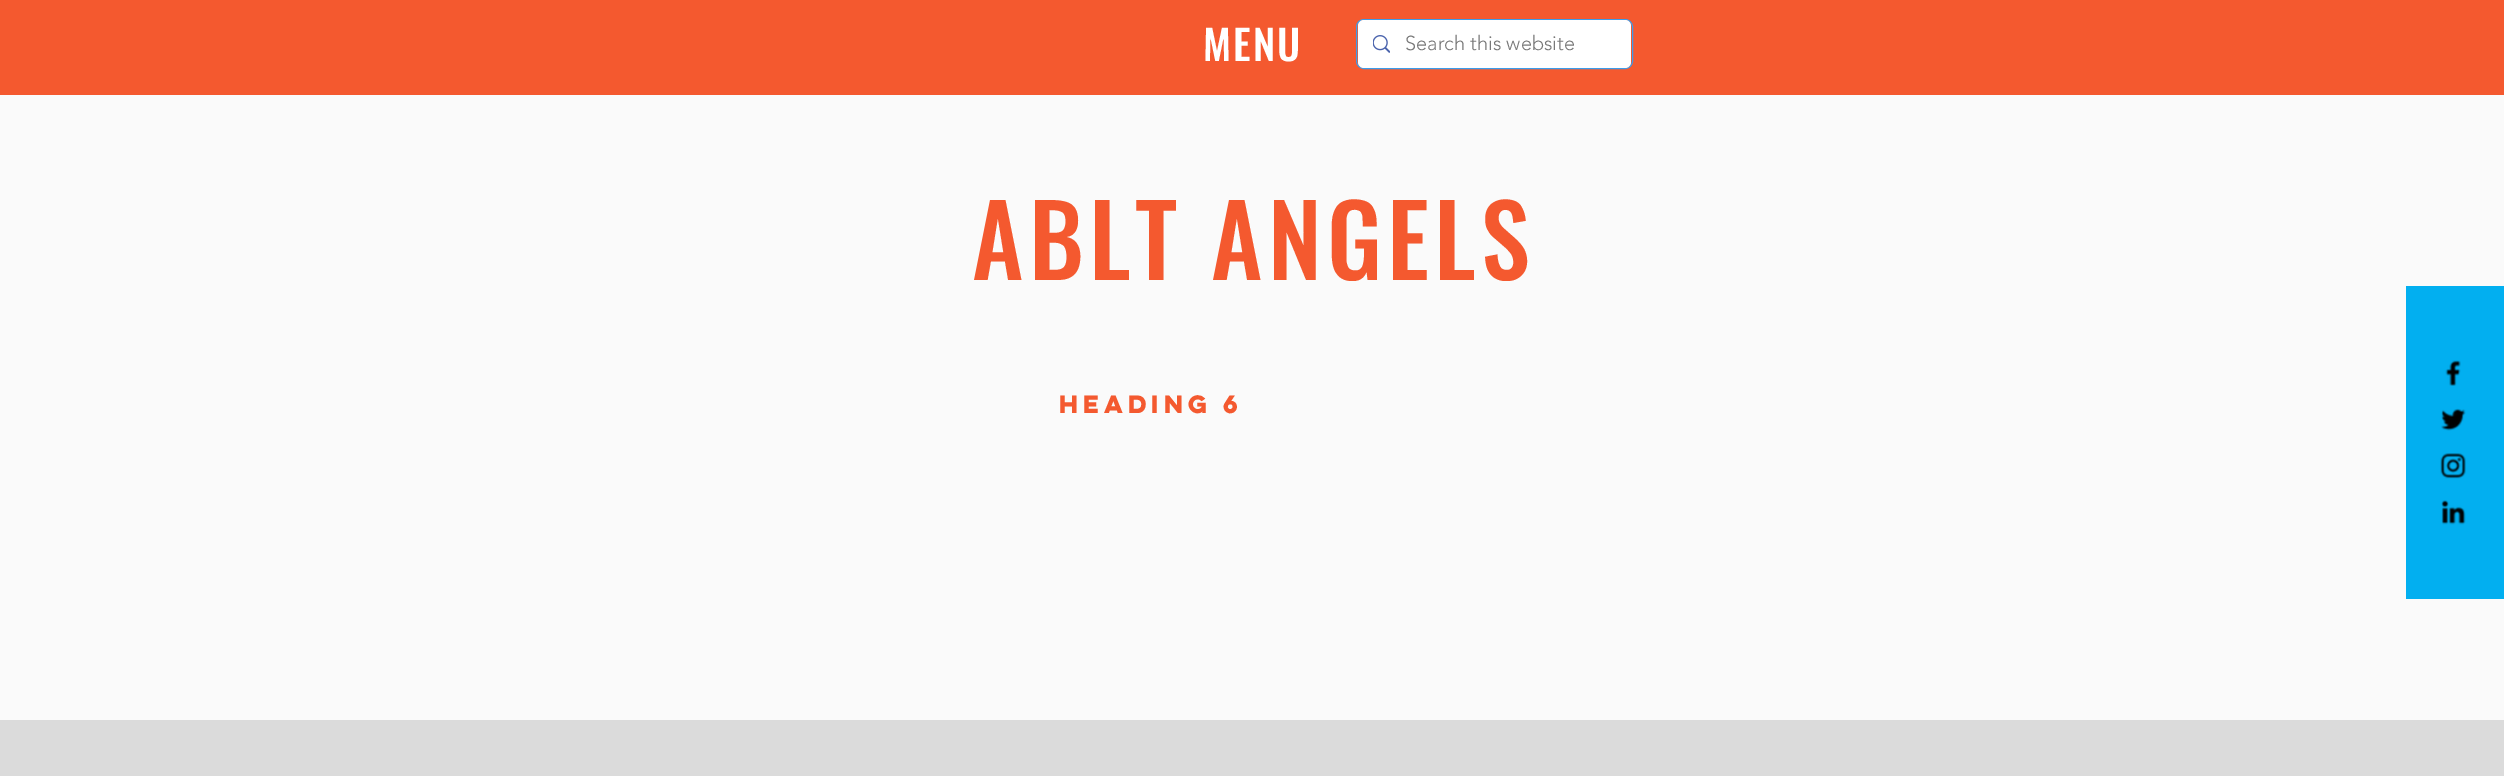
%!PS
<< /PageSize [2504 776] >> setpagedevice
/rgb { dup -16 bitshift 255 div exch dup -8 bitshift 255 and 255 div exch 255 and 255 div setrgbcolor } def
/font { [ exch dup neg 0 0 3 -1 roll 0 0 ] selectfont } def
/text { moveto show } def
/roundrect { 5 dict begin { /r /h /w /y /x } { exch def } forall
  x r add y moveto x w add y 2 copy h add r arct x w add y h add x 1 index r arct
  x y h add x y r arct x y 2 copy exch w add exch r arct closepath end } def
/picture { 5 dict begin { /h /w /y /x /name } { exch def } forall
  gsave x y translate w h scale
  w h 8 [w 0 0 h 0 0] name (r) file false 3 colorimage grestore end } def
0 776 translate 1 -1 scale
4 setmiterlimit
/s1 { /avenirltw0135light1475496-Light 20 font 16#787878 rgb } def
/s2 { /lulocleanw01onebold-Bold 22.5 font 16#F4592F rgb } def
16#FAFAFA rgb
0 0 2504 776 rectfill
16#F4592F rgb
0 0 2504 95 rectfill
/Oswald-Medium 41 font
16#FFFFFF rgb
1203 61 moveto 2 0 (MENU) ashow
16#3D9BE9 rgb
1356.5 19.5 276 49 7.5 roundrect stroke
16#FFFFFF rgb
1358 20 273 48 6 roundrect fill
(pic1.raw) 1373 35 17 18 picture
s1
(Search this website) 1405 50 text
/Oswald-Medium 98.75 font
16#F4592F rgb
972 280 moveto 5 0 (ABLT ANGELS) ashow
s2
(Heading 6) 1059 413 text
16#02AFF0 rgb
2406 286 98 313 rectfill
(pic2.raw) 2445 360 16 26 picture
(pic3.raw) 2441 408 25 23 picture
(pic4.raw) 2440 453 26 26 picture
(pic5.raw) 2441 500 25 25 picture
16#DBDBDB rgb
0 720 2504 56 rectfill
showpage
